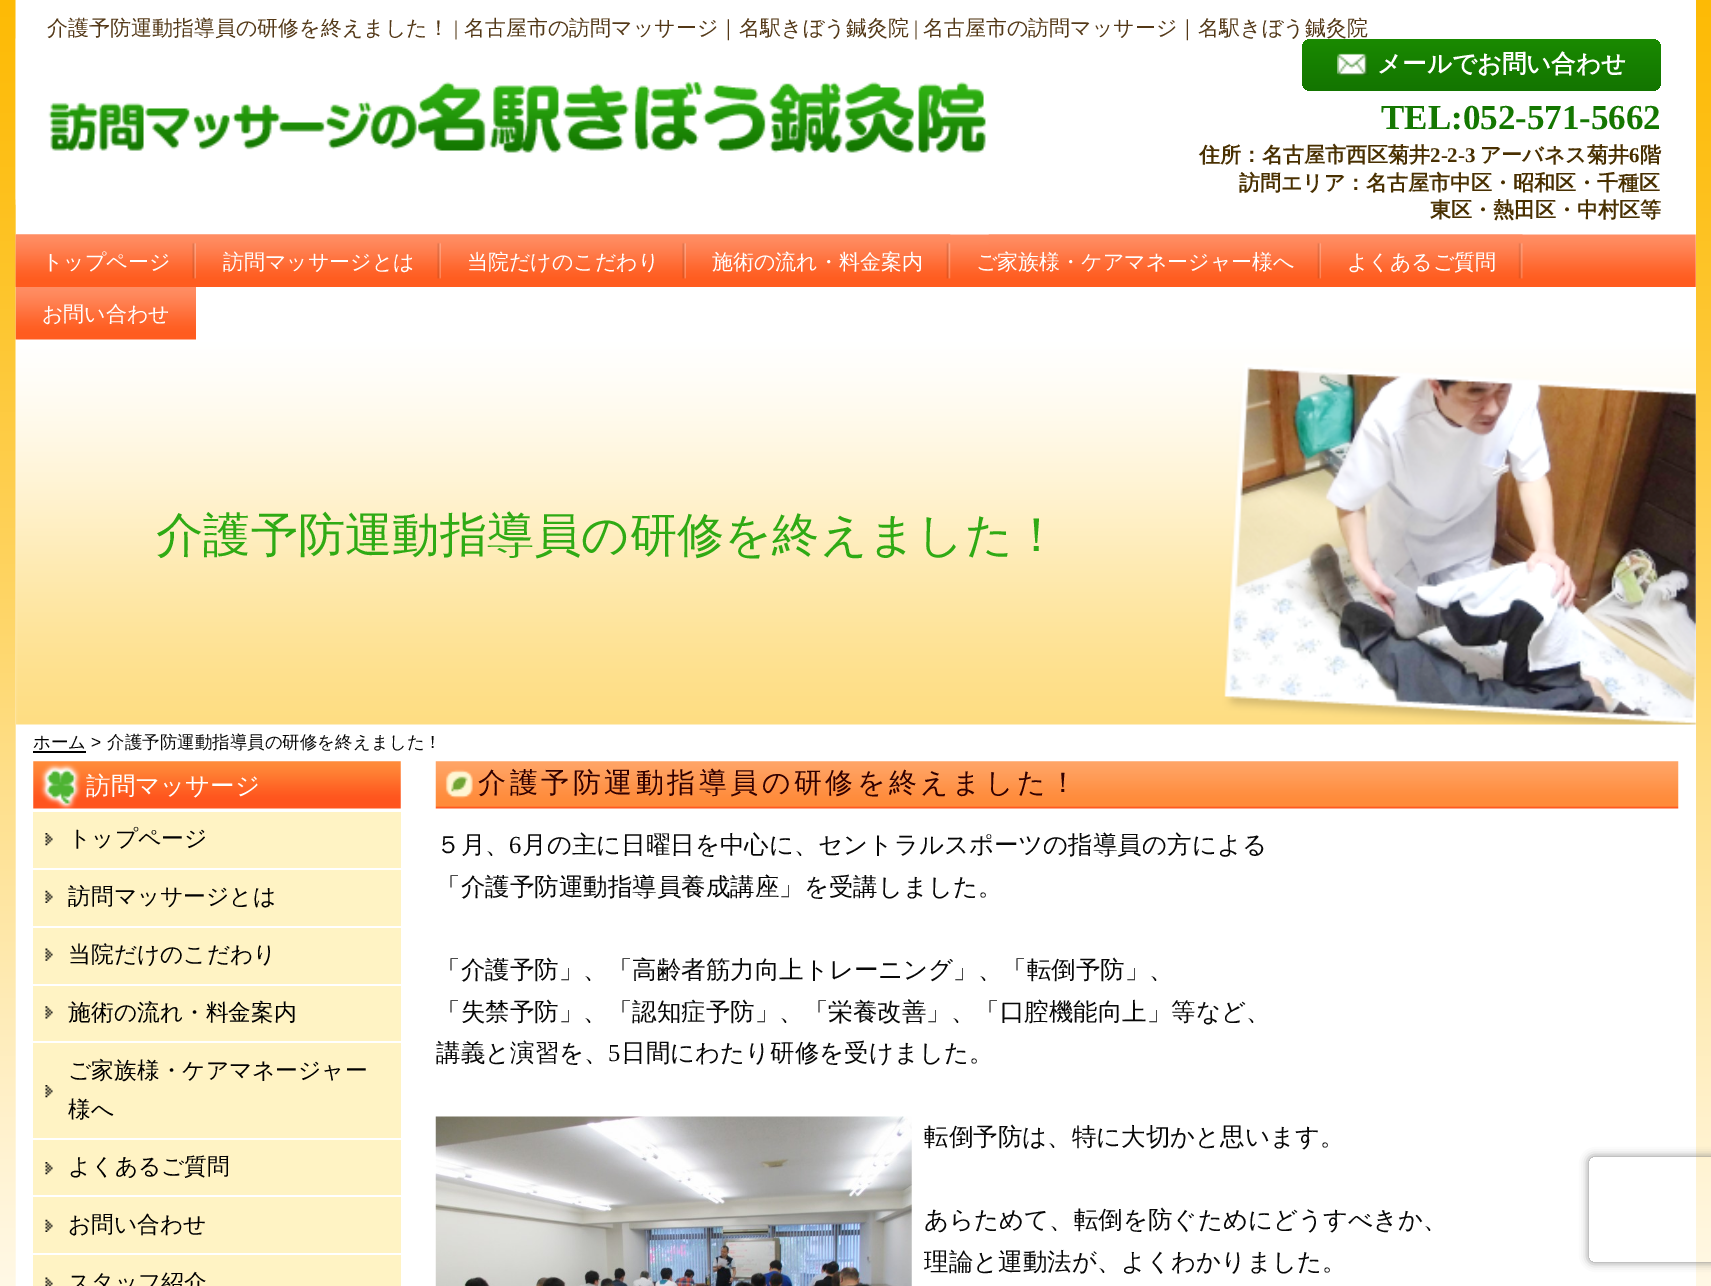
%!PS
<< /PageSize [1711 1286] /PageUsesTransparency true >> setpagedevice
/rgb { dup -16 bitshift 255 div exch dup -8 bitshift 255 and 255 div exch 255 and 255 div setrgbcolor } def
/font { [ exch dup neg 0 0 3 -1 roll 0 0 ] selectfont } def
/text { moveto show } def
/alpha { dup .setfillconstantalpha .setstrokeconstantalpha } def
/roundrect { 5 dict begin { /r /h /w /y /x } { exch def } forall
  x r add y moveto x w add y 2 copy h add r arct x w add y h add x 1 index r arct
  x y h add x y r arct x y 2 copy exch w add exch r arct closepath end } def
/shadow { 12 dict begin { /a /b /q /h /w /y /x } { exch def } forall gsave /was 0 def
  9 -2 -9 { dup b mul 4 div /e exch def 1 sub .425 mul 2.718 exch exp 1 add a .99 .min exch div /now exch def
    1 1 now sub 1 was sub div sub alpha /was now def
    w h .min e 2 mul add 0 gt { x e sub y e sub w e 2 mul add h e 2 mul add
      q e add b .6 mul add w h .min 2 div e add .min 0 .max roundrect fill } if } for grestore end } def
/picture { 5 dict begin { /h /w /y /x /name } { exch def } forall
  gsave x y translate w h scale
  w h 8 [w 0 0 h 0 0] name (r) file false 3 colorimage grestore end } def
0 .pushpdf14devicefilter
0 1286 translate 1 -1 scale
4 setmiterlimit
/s1 { /WenQuanYiZenHei-Medium 21 font 16#533817 rgb } def
/s2 { /LiberationSerif-Regular 21 font 16#533817 rgb } def
/s3 { /WenQuanYiZenHei-Bold 24.5 font 16#FFFFFF rgb } def
/s4 { /LiberationSerif-Bold 35 font 16#147701 rgb } def
/s5 { /WenQuanYiZenHei-Bold 21 font 16#493001 rgb } def
/s6 { /LiberationSerif-Bold 21 font 16#493001 rgb } def
/s7 { /WenQuanYiZenHei-Medium 21 font 16#FFFFFF rgb } def
/s8 { /WenQuanYiZenHei-Medium 47.25 font 16#2FAA14 rgb } def
/s9 { /WenQuanYiZenHei-Medium 17.5 font 16#000000 rgb } def
/s10 { /LiberationSans-Regular 17.5 font 16#080808 rgb } def
/s11 { /WenQuanYiZenHei-Medium 17.5 font 16#080808 rgb } def
/s12 { /WenQuanYiZenHei-Medium 24.5 font 16#FFFFFF rgb } def
/s13 { /WenQuanYiZenHei-Medium 22.75 font 16#000000 rgb } def
/s14 { /WenQuanYiZenHei-Medium 24.5 font 16#080808 rgb } def
/s15 { /LiberationSerif-Regular 24.5 font 16#080808 rgb } def
16#FFFFFF rgb
0 0 1711 1286 rectfill
(pic1.raw) 0 0 1711 1286 picture
16 0 1680 1286 rectfill
(pic2.raw) 15 0 1 200 picture
(pic3.raw) 15 38 971 167 picture
s1
(介護予防運動指導員の研修を終えました！) 47 35 text
s2
(|) 454 35 text
s1
(名古屋市の訪問マッサージ｜名駅きぼう鍼灸院) 464 35 text
s2
(|) 914 35 text
gsave 1302 39 359 52 9 roundrect clip newpath
<< /ShadingType 2 /ColorSpace /DeviceRGB /Coords [1481 38 1481 91] /Extend [true true] /Function << /FunctionType 3 /Domain [0 1] /Functions [<< /FunctionType 2 /Domain [0 1] /C0 [0.102 0.541 0] /C1 [0.075 0.459 0] /N 1 >> << /FunctionType 2 /Domain [0 1] /C0 [0.075 0.459 0] /C1 [0.075 0.459 0] /N 1 >>] /Bounds [0.99] /Encode [0 1 0 1] >> >> shfill grestore
s1
(名古屋市の訪問マッサージ｜名駅きぼう鍼灸院) 923 35 text
(pic4.raw) 1337 53 32 23 picture
s3
(メールでお問い合わせ) 1377 72 text
s4
(TEL:052-571-5662) 1381 129 text
s5
(住所：名古屋市西区菊井) 1199 162 text
s6
(2-2-3) 1430 162 text
s5
(アーバネス菊井) 1480 162 text
s6
(6) 1629 162 text
s5
(階) 1640 162 text
(訪問エリア：名古屋市中区・昭和区・千種区) 1239 190 text
(東区・熱田区・中村区等) 1430 217 text
(pic5.raw) 15 234 1681 53 picture
(pic6.raw) 15 234 181 53 picture
s7
(トップページ) 42 269 text
(pic7.raw) 196 234 245 45 picture
(訪問マッサージとは) 223 269 text
(pic7.raw) 441 234 245 45 picture
(当院だけのこだわり) 467 269 text
(pic8.raw) 686 234 265 45 picture
(施術の流れ・料金案内) 712 269 text
(pic9.raw) 988 234 334 45 picture
(ご家族様・ケアマネージャー様へ) 976 269 text
(pic10.raw) 1321 234 202 45 picture
(よくあるご質問) 1347 269 text
(pic12.raw) 15 339 1681 386 picture
(pic11.raw) 15 287 181 53 picture
(お問い合わせ) 42 321 text
s8
(介護予防運動指導員の研修を終えました！) 156 551 text
s9
(ホーム) 33 748 text
33 751 53 2 rectfill
s10
(>) 91 748 text
s11
(介護予防運動指導員の研修を終えました！) 107 748 text
(pic13.raw) 33 761 368 48 picture
s12
(訪問マッサージ) 86 794 text
16#FFF3C4 rgb
33 812 368 474 rectfill
(pic14.raw) 45 833 8 13 picture
16#FFFFFF rgb
33 868 368 2 rectfill
s13
(トップページ) 68 846 text
(pic15.raw) 45 890 8 13 picture
16#FFFFFF rgb
33 926 368 2 rectfill
s13
(訪問マッサージとは) 68 904 text
(pic16.raw) 45 948 8 13 picture
16#FFFFFF rgb
33 984 368 2 rectfill
s13
(当院だけのこだわり) 68 962 text
(pic17.raw) 45 1006 8 13 picture
16#FFFFFF rgb
33 1041 368 2 rectfill
s13
(施術の流れ・料金案内) 68 1020 text
(pic14.raw) 45 1085 8 13 picture
16#FFFFFF rgb
33 1138 368 2 rectfill
s13
(ご家族様・ケアマネージャー) 68 1078 text
(様へ) 68 1117 text
(pic14.raw) 45 1162 8 13 picture
16#FFFFFF rgb
33 1195 368 2 rectfill
s13
(よくあるご質問) 68 1174 text
(pic15.raw) 45 1219 8 13 picture
16#FFFFFF rgb
33 1253 368 2 rectfill
s13
(お問い合わせ) 68 1232 text
(pic18.raw) 45 1277 8 9 picture
(スタッフ紹介) 68 1290 text
(pic19.raw) 435 761 1244 48 picture
/WenQuanYiZenHei-Medium 28 font
16#310000 rgb
478 792 moveto 3.5 0 (介護予防運動指導員の研修を終えました！) ashow
s14
(５月、) 436 853 text
s15
(6) 509 853 text
s14
(月の主に日曜日を中心に、セントラルスポーツの指導員の方による) 522 853 text
(「介護予防運動指導員養成講座」を受講しました。) 436 895 text
(「介護予防」、「高齢者筋力向上トレーニング」、「転倒予防」、) 436 978 text
(「失禁予防」、「認知症予防」、「栄養改善」、「口腔機能向上」等など、) 436 1020 text
(講義と演習を、) 436 1061 text
s15
(5) 608 1061 text
s14
(日間にわたり研修を受けました。) 621 1061 text
(pic20.raw) 435 1116 477 170 picture
(転倒予防は、特に大切かと思います。) 924 1145 text
(あらためて、転倒を防ぐためにどうすべきか、) 924 1228 text
(理論と運動法が、よくわかりました。) 924 1270 text
gsave
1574 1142 moveto 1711 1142 lineto 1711 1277 lineto 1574 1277 lineto closepath 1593 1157 moveto 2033 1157 lineto 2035 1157 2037 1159 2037 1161 curveto 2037 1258 lineto 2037 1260 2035 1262 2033 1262 curveto 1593 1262 lineto 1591 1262 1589 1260 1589 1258 curveto 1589 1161 lineto 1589 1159 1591 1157 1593 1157 curveto closepath eoclip newpath
16#808080 rgb
1589 1157 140 105 4 4.5 1 shadow
grestore
.poppdf14devicefilter showpage
